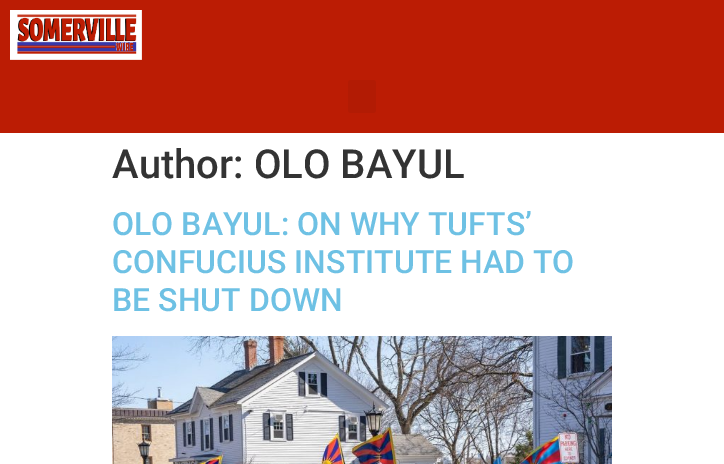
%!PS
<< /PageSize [724 464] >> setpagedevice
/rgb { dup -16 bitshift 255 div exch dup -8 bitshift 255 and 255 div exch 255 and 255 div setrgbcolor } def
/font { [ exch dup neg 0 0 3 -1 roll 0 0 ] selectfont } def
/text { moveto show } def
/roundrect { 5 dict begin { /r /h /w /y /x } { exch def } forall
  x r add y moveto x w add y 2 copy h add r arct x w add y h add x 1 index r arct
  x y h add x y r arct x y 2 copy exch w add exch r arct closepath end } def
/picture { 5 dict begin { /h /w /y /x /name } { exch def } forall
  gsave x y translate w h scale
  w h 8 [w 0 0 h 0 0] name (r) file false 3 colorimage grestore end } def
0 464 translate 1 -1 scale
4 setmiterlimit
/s1 { /Roboto-Medium 40 font 16#333333 rgb } def
/s2 { /Roboto-Medium 32 font 16#6EC1E4 rgb } def
16#FFFFFF rgb
0 0 724 464 rectfill
16#BB1C04 rgb
0 0 724 133 rectfill
(pic1.raw) 10 10 132 50 picture
16#B21B04 rgb
348 80 28 33 3 roundrect fill
s1
(Author: OLO BAYUL) 112 178 text
s2
(OLO BAYUL: ON WHY TUFTS’) 112 235 text
(CONFUCIUS INSTITUTE HAD TO) 112 273 text
(BE SHUT DOWN) 112 311 text
(pic2.raw) 112 336 500 128 picture
showpage
